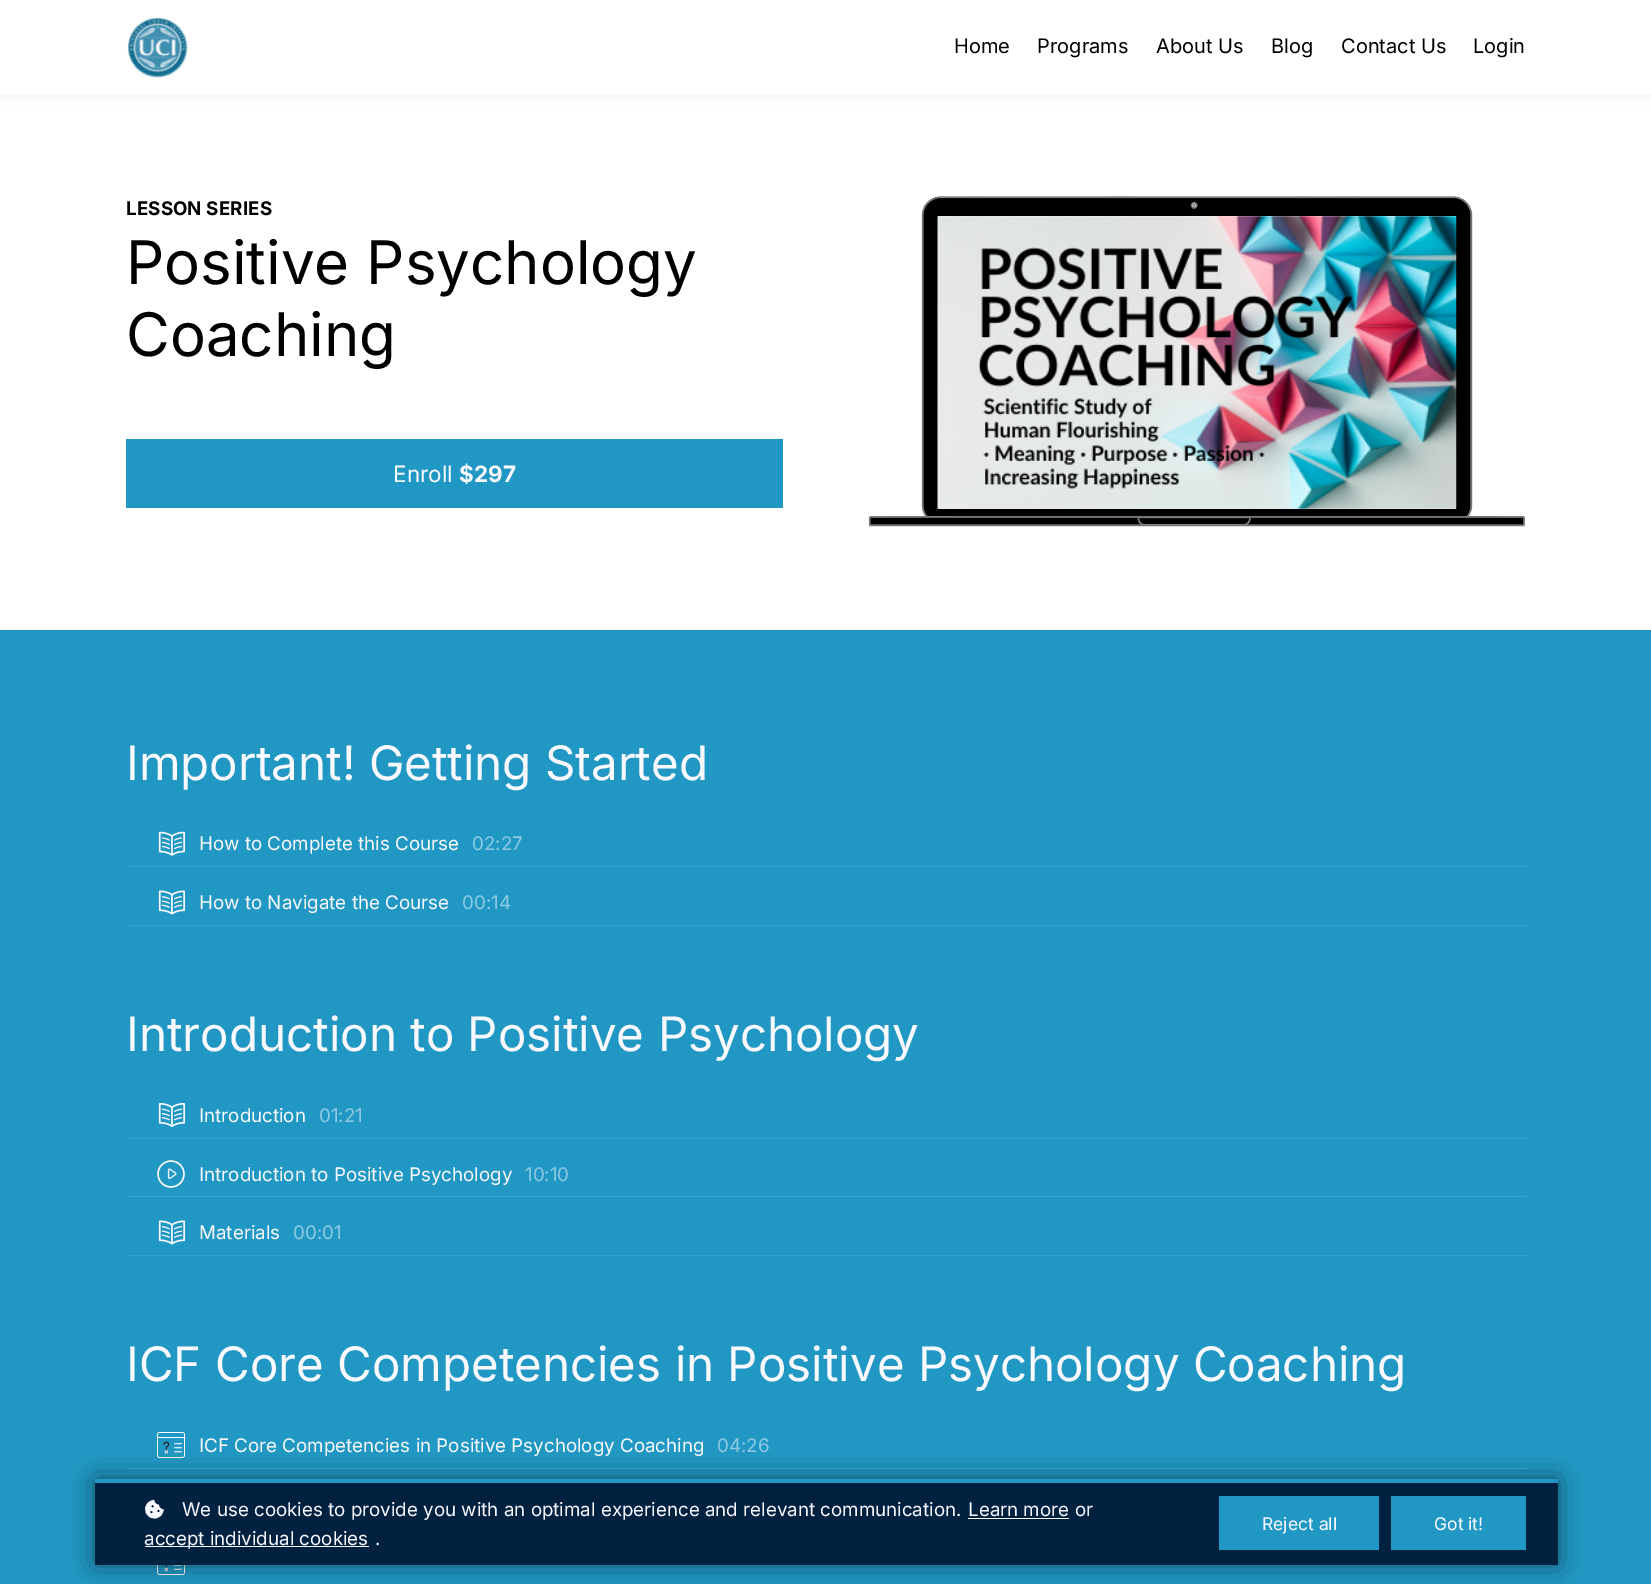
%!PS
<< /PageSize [1651 1584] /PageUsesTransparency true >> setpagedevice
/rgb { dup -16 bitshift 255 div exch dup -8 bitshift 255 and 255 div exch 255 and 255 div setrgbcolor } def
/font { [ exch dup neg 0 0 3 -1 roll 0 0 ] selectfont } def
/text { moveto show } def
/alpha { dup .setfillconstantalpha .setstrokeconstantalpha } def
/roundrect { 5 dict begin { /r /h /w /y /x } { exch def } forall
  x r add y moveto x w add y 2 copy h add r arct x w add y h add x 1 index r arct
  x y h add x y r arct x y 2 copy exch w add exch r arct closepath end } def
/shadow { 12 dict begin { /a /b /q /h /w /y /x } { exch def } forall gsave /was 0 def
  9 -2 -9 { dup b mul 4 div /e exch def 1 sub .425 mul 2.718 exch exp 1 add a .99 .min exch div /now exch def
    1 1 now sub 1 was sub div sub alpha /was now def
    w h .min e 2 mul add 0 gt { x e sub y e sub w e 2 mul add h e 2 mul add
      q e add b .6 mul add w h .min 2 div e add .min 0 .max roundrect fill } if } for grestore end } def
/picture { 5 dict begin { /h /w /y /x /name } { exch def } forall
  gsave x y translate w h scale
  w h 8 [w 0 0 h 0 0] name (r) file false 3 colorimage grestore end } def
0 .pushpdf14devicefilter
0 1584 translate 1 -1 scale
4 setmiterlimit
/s1 { /Inter-Regular 20 font 16#000000 rgb } def
/s2 { /Inter-Regular 60 font 16#000000 rgb } def
/s3 { /Inter-Regular 22.5 font 16#F9F9FF rgb } def
/s4 { /Inter-Bold 22.5 font 16#F9F9FF rgb } def
/s5 { /Inter-Regular 47.5 font 16#F9F9FF rgb } def
/s6 { /Inter-Regular 18.75 font 16#F9F9FF rgb } def
/s7 { /Inter-Regular 18.75 font 16#8DC9E2 rgb } def
/s8 { /Inter-Regular 17.5 font 16#F9F9FF rgb } def
16#FFFFFF rgb
0 0 1651 1584 rectfill
16#000000 rgb
0 0 1651 94 0 9.5 0.05 shadow
16#FFFFFF rgb
0 0 1651 94 rectfill
(pic1.raw) 127 17 61 61 picture
s1
(Home) 954 53 text
(Programs) 1037 53 text
(About Us) 1156 53 text
(Blog) 1271 53 text
(Contact Us) 1341 53 text
(Login) 1473 53 text
/Inter-Bold 18.75 font
126 215 moveto 0.1 0 (LESSON SERIES) ashow
s2
(Positive Psychology) 126 284 text
(Coaching) 126 356 text
16#2198C4 rgb
126 439 657 69 rectfill
s3
(Enroll) 393 482 text
s4
($297) 459 482 text
(pic2.raw) 868 196 657 331 picture
(pic3.raw) 937 216 520 293 picture
16#2198C4 rgb
0 630 1651 954 rectfill
s5
(Important! Getting Started) 126 780 text
16#37A2CA rgb
126 866 1400 1 rectfill
(pic4.raw) 158 831 27 25 picture
s6
(How to Complete this Course) 199 850 text
s7
(02:27) 472 850 text
16#37A2CA rgb
126 925 1400 1 rectfill
(pic5.raw) 158 890 27 25 picture
s6
(How to Navigate the Course) 199 909 text
s7
(00:14) 462 909 text
s5
(Introduction to Positive Psychology) 126 1051 text
16#37A2CA rgb
126 1138 1400 1 rectfill
(pic6.raw) 158 1103 27 24 picture
s6
(Introduction) 199 1122 text
s7
(01:21) 319 1122 text
16#37A2CA rgb
126 1196 1400 1 rectfill
(pic7.raw) 157 1160 28 28 picture
s6
(Introduction to Positive Psychology) 199 1181 text
s7
(10:10) 525 1181 text
16#37A2CA rgb
126 1255 1400 1 rectfill
(pic5.raw) 158 1220 27 25 picture
s6
(Materials) 199 1239 text
s7
(00:01) 293 1239 text
s5
(ICF Core Competencies in Positive Psychology Coaching) 126 1381 text
16#37A2CA rgb
126 1468 1400 1 rectfill
(pic8.raw) 157 1432 29 26 picture
s6
(ICF Core Competencies in Positive Psychology Coaching) 199 1452 text
s7
(04:26) 717 1452 text
(pic9.raw) 157 1565 28 10 picture
16#000000 rgb
95 1479 1463 86 0 12.5 0.5 shadow
16#012141 rgb
95 1483 1463 82 rectfill
16#2198C4 rgb
95 1479 1463 4 rectfill
(pic10.raw) 145 1499 19 20 picture
s6
(We use cookies to provide you with an optimal experience and relevant communication.) 182 1516 text
(Learn more) 968 1516 text
968 1518 101 1 rectfill
(or) 1075 1516 text
145 1546 224 1 rectfill
(accept individual cookies) 144 1545 text
(.) 375 1545 text
16#2198C4 rgb
1219 1496 160 54 rectfill
s8
(Reject all) 1262 1530 text
16#2198C4 rgb
1391 1496 135 54 rectfill
s8
(Got it!) 1434 1530 text
.poppdf14devicefilter showpage
